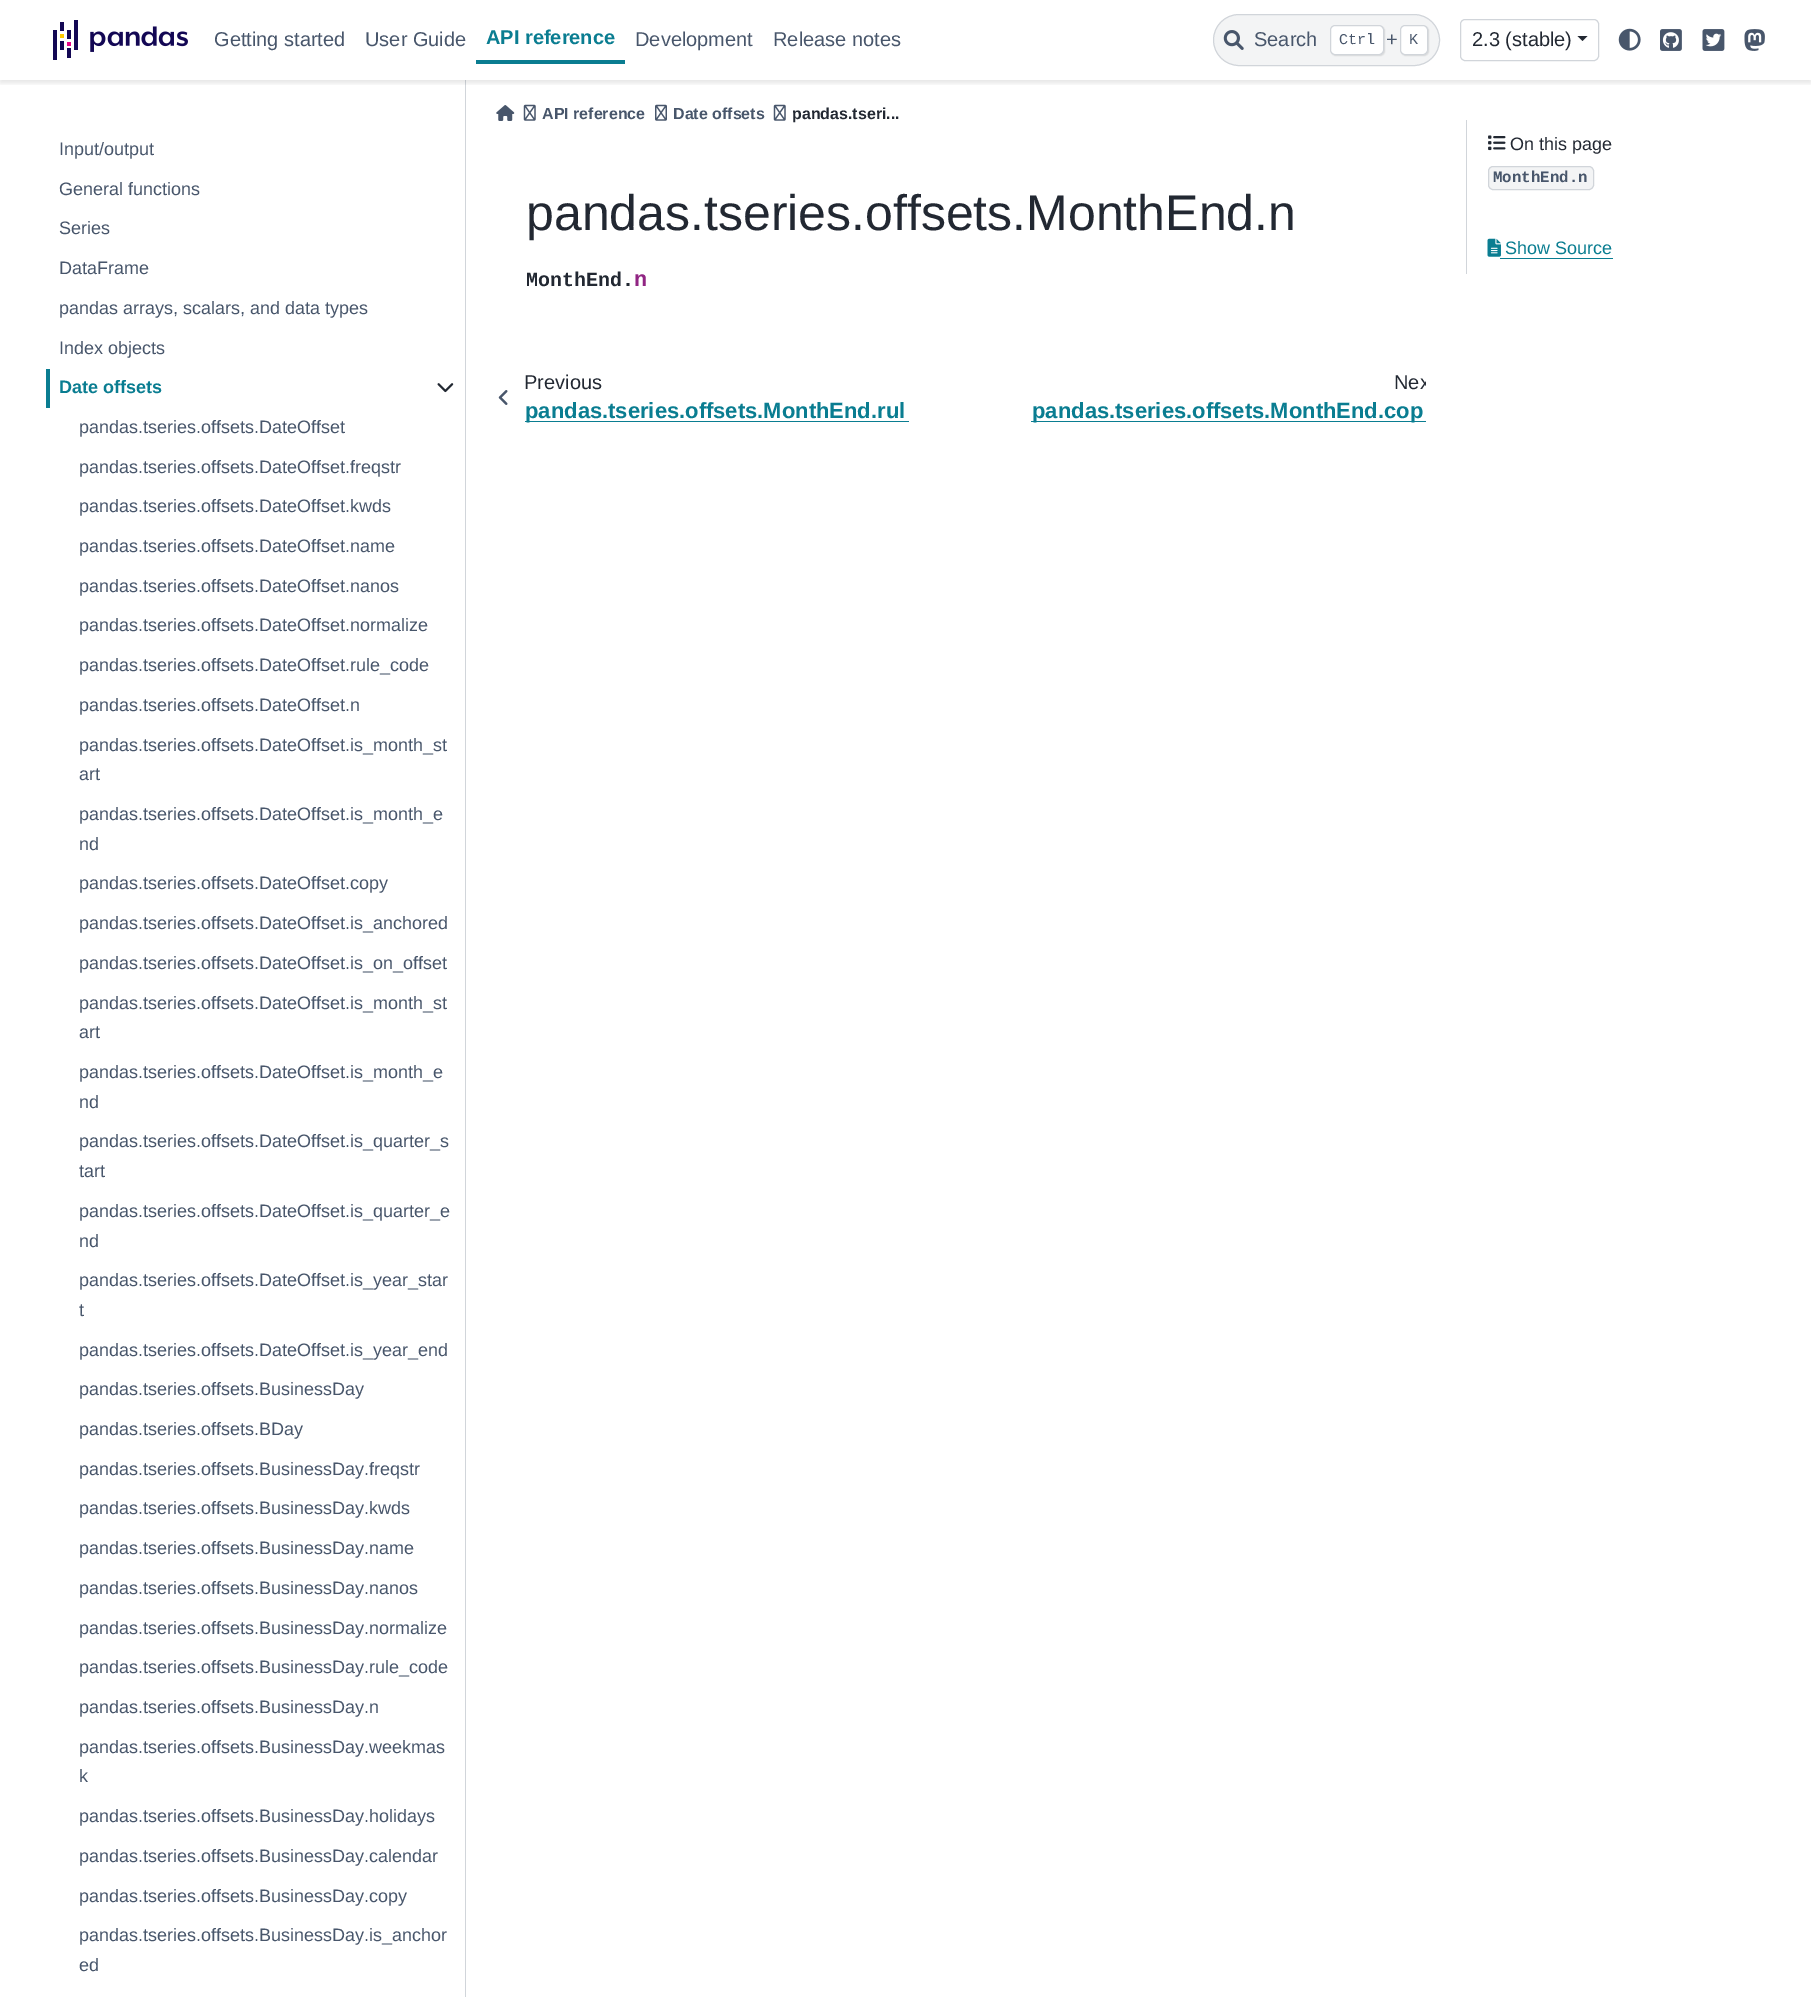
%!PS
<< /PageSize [1811 1997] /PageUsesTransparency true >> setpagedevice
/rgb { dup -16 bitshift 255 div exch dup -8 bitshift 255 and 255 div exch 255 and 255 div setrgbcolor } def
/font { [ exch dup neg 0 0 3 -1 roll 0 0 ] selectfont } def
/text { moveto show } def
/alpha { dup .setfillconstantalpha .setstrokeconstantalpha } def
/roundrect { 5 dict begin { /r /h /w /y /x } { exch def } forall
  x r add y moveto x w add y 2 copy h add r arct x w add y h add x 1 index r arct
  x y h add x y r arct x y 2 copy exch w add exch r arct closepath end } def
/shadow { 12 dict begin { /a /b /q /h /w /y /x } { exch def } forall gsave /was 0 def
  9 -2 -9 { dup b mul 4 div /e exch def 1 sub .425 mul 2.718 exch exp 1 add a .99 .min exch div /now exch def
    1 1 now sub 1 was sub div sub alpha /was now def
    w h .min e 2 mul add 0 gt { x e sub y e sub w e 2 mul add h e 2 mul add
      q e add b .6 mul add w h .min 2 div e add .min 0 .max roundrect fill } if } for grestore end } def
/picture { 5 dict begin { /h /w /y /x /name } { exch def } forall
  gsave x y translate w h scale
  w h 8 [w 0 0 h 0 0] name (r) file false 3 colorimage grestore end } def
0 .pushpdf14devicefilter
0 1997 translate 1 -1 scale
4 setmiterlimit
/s1 { /LiberationSans-Regular 20 font 16#48566B rgb } def
/s2 { /LiberationSans-Bold 20 font 16#0A7D91 rgb } def
/s3 { /LiberationMono-Regular 15 font 16#48566B rgb } def
/s4 { /LiberationSans-Regular 20 font 16#222832 rgb } def
/s5 { /LiberationSans-Regular 18 font 16#48566B rgb } def
/s6 { /LiberationSans-Bold 18 font 16#0A7D91 rgb } def
/s7 { /LiberationSans-Bold 16 font 16#48566B rgb } def
/s8 { /LiberationSans-Bold 16 font 16#222832 rgb } def
/s9 { /LiberationSans-Regular 50 font 16#222832 rgb } def
/s10 { /LiberationMono-Bold 20 font 16#222832 rgb } def
/s11 { /LiberationMono-Bold 22 font 16#912583 rgb } def
/s12 { /LiberationSans-Bold 22 font 16#0A7D91 rgb } def
/s13 { /LiberationSans-Regular 18 font 16#222832 rgb } def
/s14 { /LiberationMono-Bold 15.75 font 16#48566B rgb } def
/s15 { /LiberationSans-Regular 18 font 16#0A7D91 rgb } def
16#FFFFFF rgb
0 0 1811 1997 rectfill
16#D1D5DA rgb
465 80 1 1917 rectfill
gsave
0 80 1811 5 rectclip
16#000000 rgb
0 3 1811 80 0 2.5 0.1 shadow
grestore
(pic1.raw) 53 20 135 40 picture
s1
(Getting started) 214 46 text
(User Guide) 365 46 text
16#0A7D91 rgb
476 60 149 4 rectfill
s2
(API reference) 486 44 text
s1
(Development) 635 46 text
(Release notes) 773 46 text
16#F3F4F5 rgb
1213.5 14.5 226 51 25.5 roundrect gsave fill grestore
16#D1D5DA rgb
stroke
(pic2.raw) 1223 30 21 20 picture
s1
(Search) 1254 46 text
16#000000 rgb
1331 26 54 30 5 0.5 0.1 shadow
16#FFFFFF rgb
1330.5 25.5 53 29 4.5 roundrect gsave fill grestore
16#D1D5DA rgb
stroke
s3
(Ctrl) 1339 44 text
s1
(+) 1386 46 text
16#000000 rgb
1401 26 28 30 5 0.5 0.1 shadow
16#FFFFFF rgb
1400.5 25.5 27 29 4.5 roundrect gsave fill grestore
16#D1D5DA rgb
stroke
s3
(K) 1409 44 text
16#D1D5DA rgb
1460.5 19.5 138 41 4.5 roundrect stroke
s4
(2.3 \(stable\)) 1472 46 text
1577.5 36 moveto 1587.5 36 lineto 1582.5 41 lineto closepath fill
(pic3.raw) 1618 28 23 23 picture
(pic4.raw) 1660 29 22 22 picture
(pic5.raw) 1702 29 23 22 picture
(pic6.raw) 1744 29 21 22 picture
s5
(Input/output) 59 155 text
(General functions) 59 195 text
(Series) 59 234 text
(DataFrame) 59 274 text
(pandas arrays, scalars, and data types) 59 314 text
(Index objects) 59 354 text
16#0A7D91 rgb
46 369 4 39 rectfill
s6
(Date offsets) 59 393 text
(pic7.raw) 437 383 17 10 picture
s5
(pandas.tseries.offsets.DateOffset) 79 433 text
(pandas.tseries.offsets.DateOffset.freqstr) 79 473 text
(pandas.tseries.offsets.DateOffset.kwds) 79 512 text
(pandas.tseries.offsets.DateOffset.name) 79 552 text
(pandas.tseries.offsets.DateOffset.nanos) 79 592 text
(pandas.tseries.offsets.DateOffset.normalize) 79 631 text
(pandas.tseries.offsets.DateOffset.rule_code) 79 671 text
(pandas.tseries.offsets.DateOffset.n) 79 711 text
(pandas.tseries.offsets.DateOffset.is_month_st) 79 751 text
(art) 79 780 text
(pandas.tseries.offsets.DateOffset.is_month_e) 79 820 text
(nd) 79 850 text
(pandas.tseries.offsets.DateOffset.copy) 79 889 text
(pandas.tseries.offsets.DateOffset.is_anchored) 79 929 text
(pandas.tseries.offsets.DateOffset.is_on_offset) 79 969 text
(pandas.tseries.offsets.DateOffset.is_month_st) 79 1009 text
(art) 79 1038 text
(pandas.tseries.offsets.DateOffset.is_month_e) 79 1078 text
(nd) 79 1108 text
(pandas.tseries.offsets.DateOffset.is_quarter_s) 79 1147 text
(tart) 79 1177 text
(pandas.tseries.offsets.DateOffset.is_quarter_e) 79 1217 text
(nd) 79 1247 text
(pandas.tseries.offsets.DateOffset.is_year_star) 79 1286 text
(t) 79 1316 text
(pandas.tseries.offsets.DateOffset.is_year_end) 79 1356 text
(pandas.tseries.offsets.BusinessDay) 79 1395 text
(pandas.tseries.offsets.BDay) 79 1435 text
(pandas.tseries.offsets.BusinessDay.freqstr) 79 1475 text
(pandas.tseries.offsets.BusinessDay.kwds) 79 1514 text
(pandas.tseries.offsets.BusinessDay.name) 79 1554 text
(pandas.tseries.offsets.BusinessDay.nanos) 79 1594 text
(pandas.tseries.offsets.BusinessDay.normalize) 79 1634 text
(pandas.tseries.offsets.BusinessDay.rule_code) 79 1673 text
(pandas.tseries.offsets.BusinessDay.n) 79 1713 text
(pandas.tseries.offsets.BusinessDay.weekmas) 79 1753 text
(k) 79 1782 text
(pandas.tseries.offsets.BusinessDay.holidays) 79 1822 text
(pandas.tseries.offsets.BusinessDay.calendar) 79 1862 text
(pandas.tseries.offsets.BusinessDay.copy) 79 1902 text
(pandas.tseries.offsets.BusinessDay.is_anchor) 79 1941 text
(ed) 79 1971 text
(pic8.raw) 496 105 19 16 picture
(pic9.raw) 523 104 13 17 picture
s7
(API reference) 542 119 text
(pic10.raw) 655 104 12 17 picture
(Date offsets) 673 119 text
(pic9.raw) 773 104 13 17 picture
s8
(pandas.tseri...) 792 119 text
s9
(pandas.tseries.offsets.MonthEnd.n) 526 230 text
s10
(MonthEnd.) 526 286 text
s11
(n) 634 286 text
(pic11.raw) 498 390 10 15 picture
s4
(Previous) 524 389 text
16#0A7D91 rgb
525 421 384 1 rectfill
s12
(pandas.tseries.offsets.MonthEnd.rul) 525 418 text
gsave
1003 358 423 80 rectclip
s4
(Nex) 1394 389 text
grestore
1031 421 395 1 rectfill
(pandas.tseries.offsets.MonthEnd.cop) 1032 418 text
16#D1D5DA rgb
1466 120 1 154 rectfill
(pic12.raw) 1488 135 18 16 picture
s13
(On this page) 1510 150 text
16#F3F4F5 rgb
1488.5 166.5 105 23 4.5 roundrect gsave fill grestore
16#D1D5DA rgb
stroke
s14
(MonthEnd.n) 1493 182 text
(pic13.raw) 1487 238 14 19 picture
s15
(Show Source) 1505 254 text
1500 258 113 1 rectfill
.poppdf14devicefilter showpage
